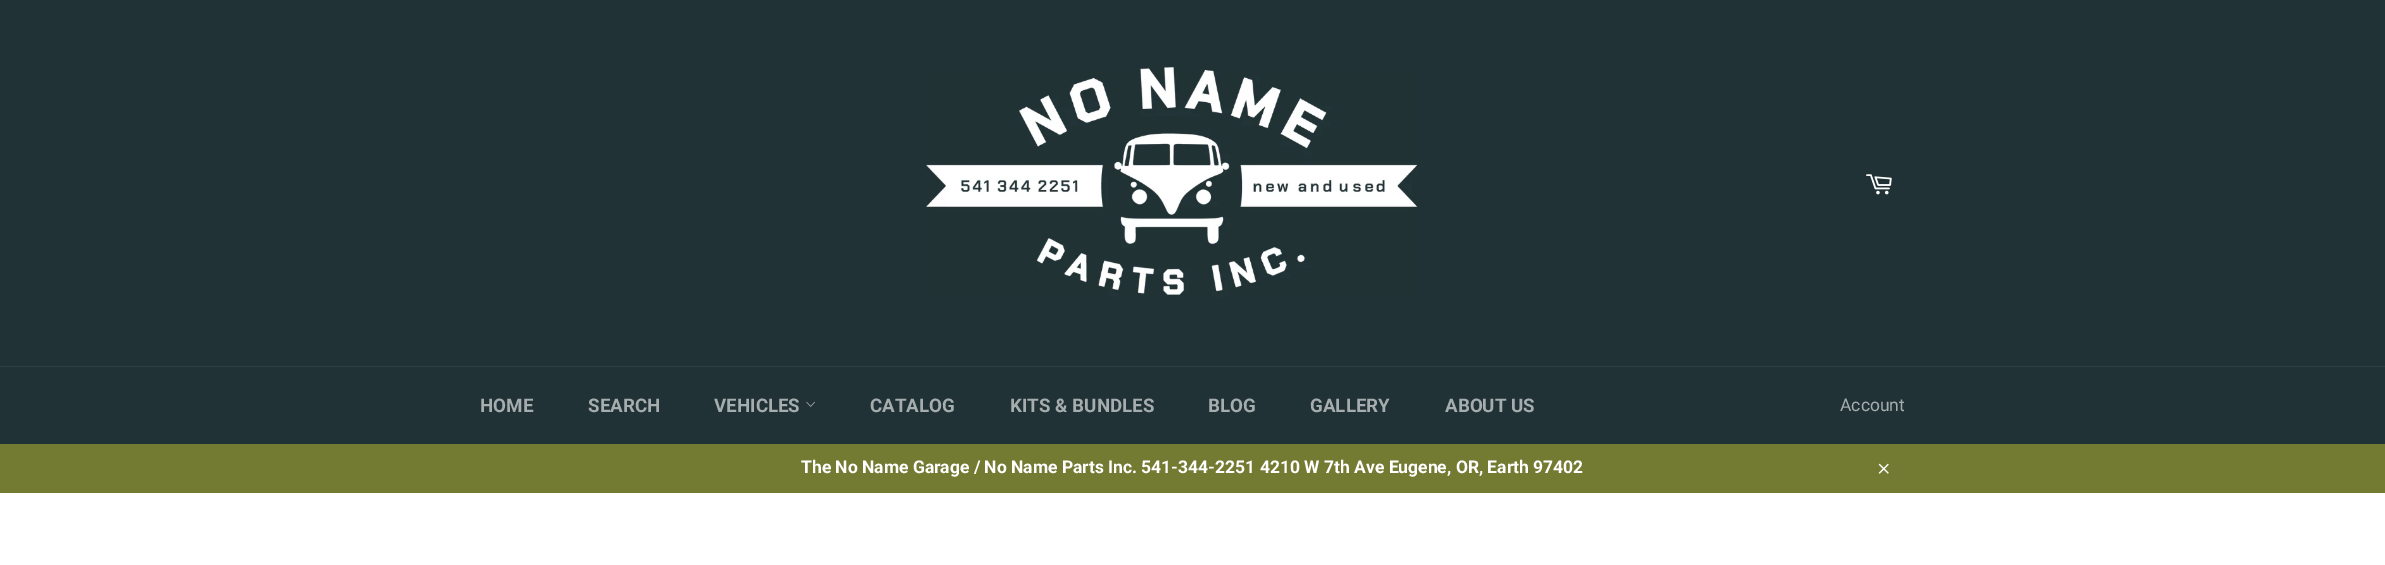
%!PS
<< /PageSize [2385 565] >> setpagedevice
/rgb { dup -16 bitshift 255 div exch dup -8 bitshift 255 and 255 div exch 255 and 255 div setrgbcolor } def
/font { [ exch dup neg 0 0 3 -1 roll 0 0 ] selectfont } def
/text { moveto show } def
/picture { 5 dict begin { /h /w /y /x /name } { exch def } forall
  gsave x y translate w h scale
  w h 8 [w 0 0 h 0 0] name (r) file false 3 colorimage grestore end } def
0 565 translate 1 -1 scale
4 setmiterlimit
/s1 { /Roboto-Bold 18.75 font 16#A6ADAF rgb } def
/s2 { /Roboto-Regular 17.5 font 16#A6ADAF rgb } def
/s3 { /Roboto-Bold 17.5 font 16#FFFFFF rgb } def
16#FFFFFF rgb
0 0 2385 565 rectfill
16#213236 rgb
0 0 2385 366 rectfill
(pic1.raw) 926 65 492 232 picture
(pic2.raw) 1866 174 26 21 picture
0 367 2385 77 rectfill
16#2B4146 rgb
0 366 2385 1 rectfill
s1
(HOME) 480 412 text
(SEARCH) 588 412 text
(VEHICLES) 714 412 text
(pic3.raw) 806 401 9 6 picture
(CATALOG) 870 412 text
(KITS & BUNDLES) 1010 412 text
(BLOG) 1208 412 text
(GALLERY) 1310 412 text
(ABOUT US) 1445 412 text
s2
(Account) 1840 411 text
16#737A32 rgb
0 444 2385 49 rectfill
s3
(The No Name Garage / No Name Parts Inc. 541-344-2251 4210 W 7th Ave Eugene, OR, Earth 97402) 801 473 text
(pic4.raw) 1878 463 11 11 picture
showpage
